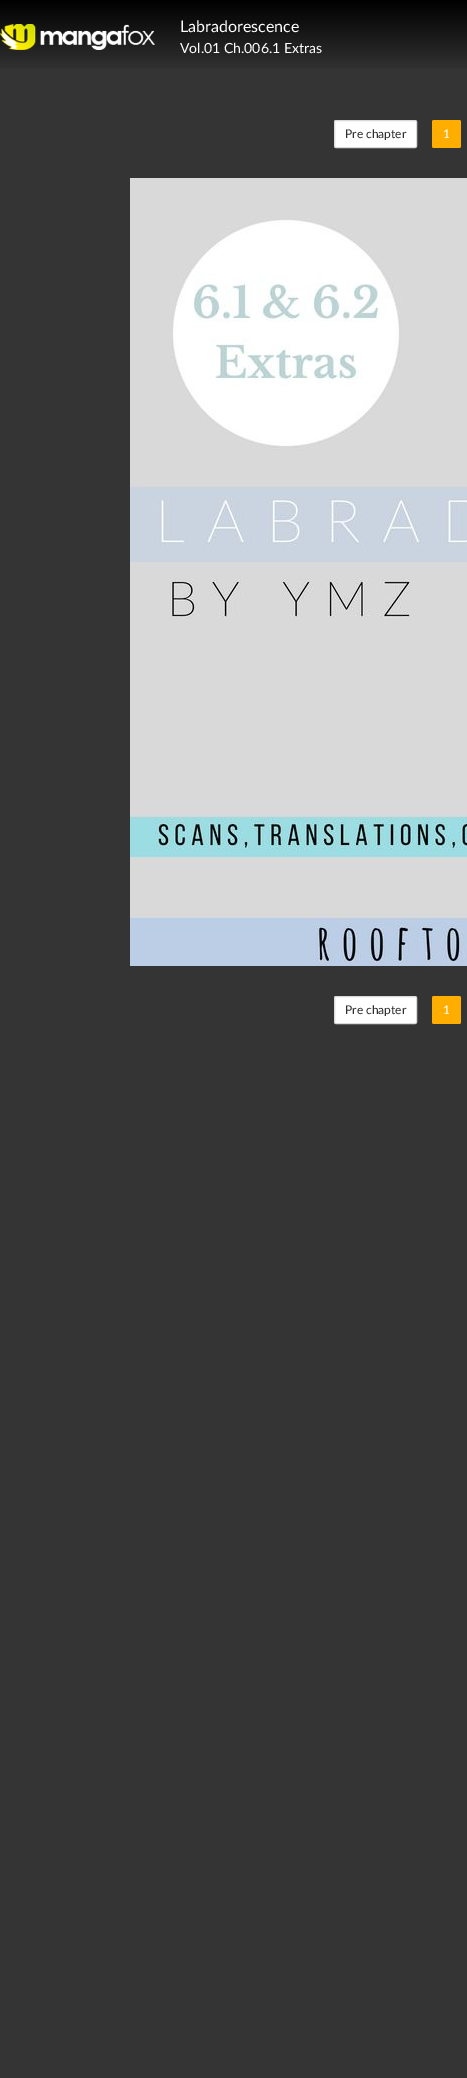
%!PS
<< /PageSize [467 2078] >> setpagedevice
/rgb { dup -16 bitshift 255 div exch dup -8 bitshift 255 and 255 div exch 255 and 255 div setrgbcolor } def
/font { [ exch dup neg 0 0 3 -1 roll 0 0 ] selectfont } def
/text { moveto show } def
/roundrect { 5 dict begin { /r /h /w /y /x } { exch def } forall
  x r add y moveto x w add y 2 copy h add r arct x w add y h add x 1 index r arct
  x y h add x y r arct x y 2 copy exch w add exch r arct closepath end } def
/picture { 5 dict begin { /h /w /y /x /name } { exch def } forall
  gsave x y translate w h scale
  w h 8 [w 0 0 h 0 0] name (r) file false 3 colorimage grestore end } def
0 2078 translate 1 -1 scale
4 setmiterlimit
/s1 { /Lato-Regular 16 font 16#FFFFFF rgb } def
/s2 { /Lato-Regular 14 font 16#FFFFFF rgb } def
/s3 { /Lato-Regular 12 font 16#2F2F2F rgb } def
/s4 { /Lato-Regular 12 font 16#FFFFFF rgb } def
16#343434 rgb
0 0 467 2078 rectfill
(pic1.raw) 0 0 467 68 picture
(pic2.raw) 0 24 155 26 picture
s1
(Labradorescence) 180 32 text
s2
(Vol.01 Ch.006.1 Extras) 180 53 text
334.5 120.5 82 27 1.5 roundrect gsave fill grestore
16#D9D9D9 rgb
stroke
s3
(Pre chapter) 345 138 text
16#FFAE00 rgb
432 120 29 28 2 roundrect fill
s4
(1) 443 138 text
(pic3.raw) 130 178 337 788 picture
334.5 996.5 82 27 1.5 roundrect gsave fill grestore
16#D9D9D9 rgb
stroke
s3
(Pre chapter) 345 1014 text
16#FFAE00 rgb
432 996 29 28 2 roundrect fill
s4
(1) 443 1014 text
showpage
